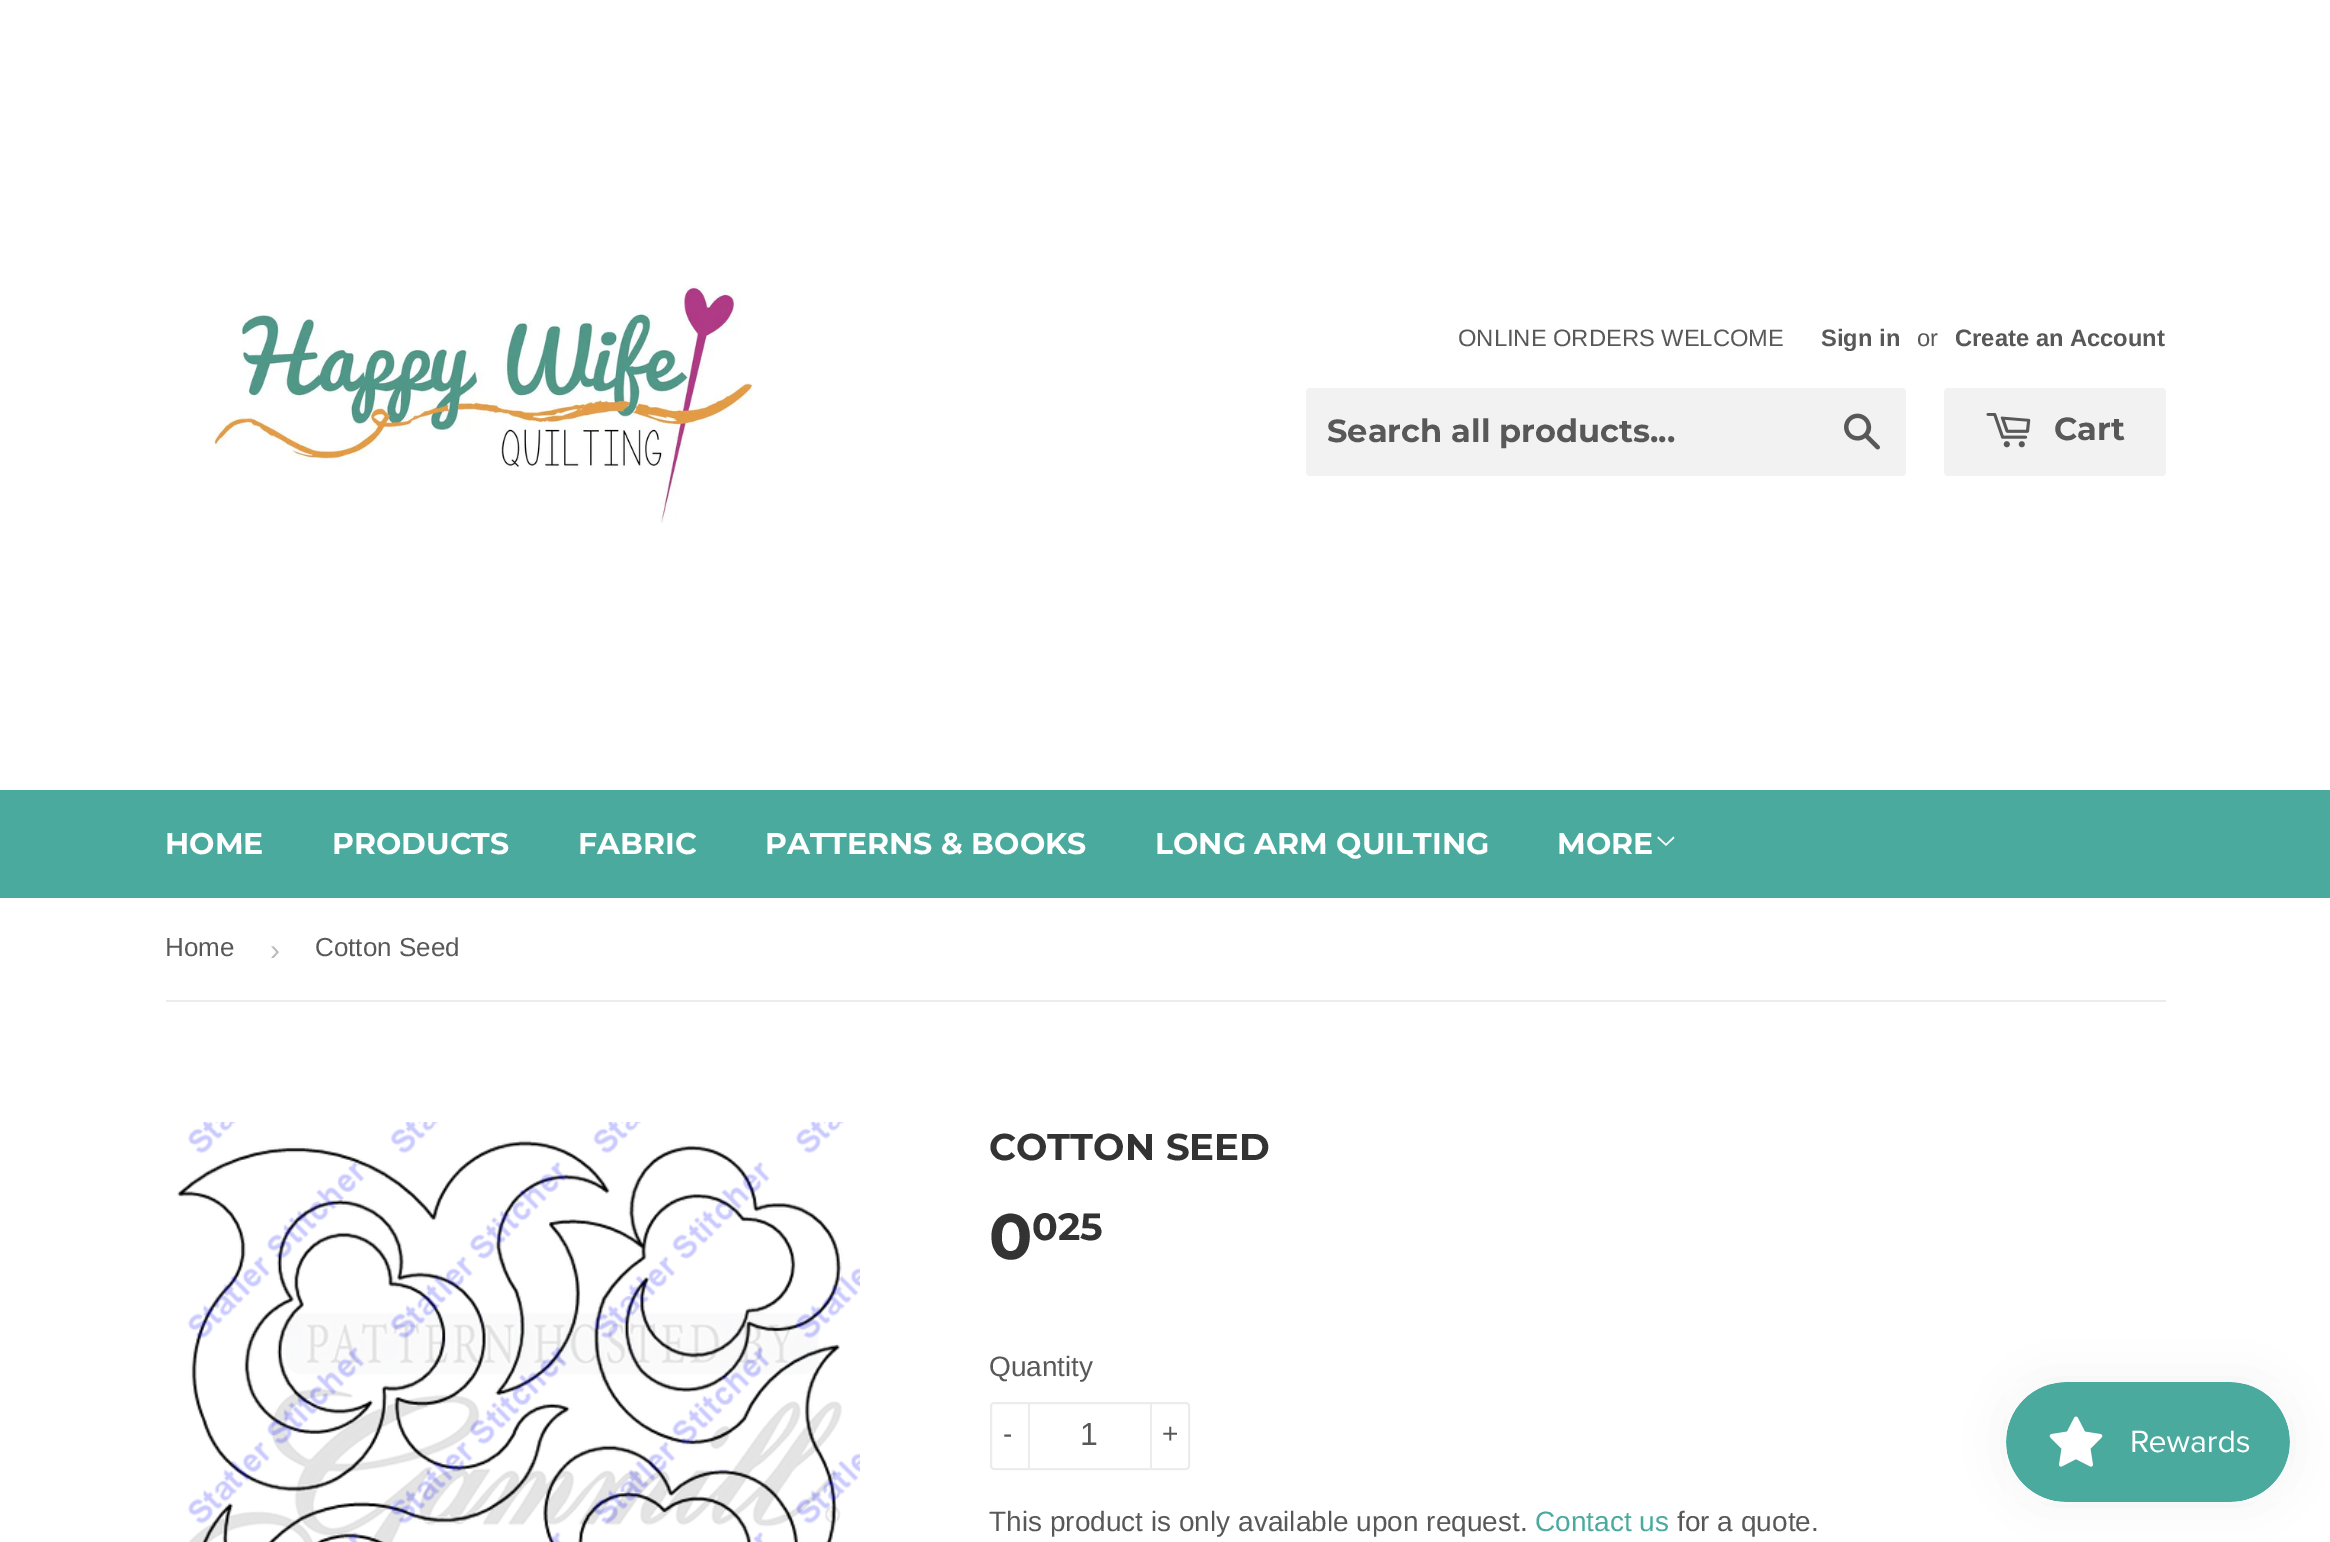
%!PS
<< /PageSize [2330 1542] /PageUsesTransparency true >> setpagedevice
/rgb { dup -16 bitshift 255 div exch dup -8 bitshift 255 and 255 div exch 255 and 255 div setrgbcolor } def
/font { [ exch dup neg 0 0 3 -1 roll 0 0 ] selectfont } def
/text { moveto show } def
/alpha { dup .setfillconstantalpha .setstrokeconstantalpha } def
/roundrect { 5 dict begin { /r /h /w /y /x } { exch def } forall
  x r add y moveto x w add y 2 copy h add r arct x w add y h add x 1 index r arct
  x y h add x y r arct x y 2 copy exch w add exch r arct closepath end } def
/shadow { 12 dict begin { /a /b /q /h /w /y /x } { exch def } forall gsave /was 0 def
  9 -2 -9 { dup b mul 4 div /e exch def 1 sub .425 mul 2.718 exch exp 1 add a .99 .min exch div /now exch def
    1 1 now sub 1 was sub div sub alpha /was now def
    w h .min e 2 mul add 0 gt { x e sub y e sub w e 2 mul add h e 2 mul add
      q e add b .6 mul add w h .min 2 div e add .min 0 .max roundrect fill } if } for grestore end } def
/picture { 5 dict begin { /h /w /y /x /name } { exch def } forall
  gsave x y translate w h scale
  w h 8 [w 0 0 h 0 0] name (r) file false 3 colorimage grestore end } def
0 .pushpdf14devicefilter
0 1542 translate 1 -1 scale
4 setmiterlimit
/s1 { /LiberationSans-Regular 23.75 font 16#585858 rgb } def
/s2 { /LiberationSans-Bold 23.75 font 16#585858 rgb } def
/s3 { /Montserrat-Thin 32 font 16#585858 rgb } def
/s4 { /Montserrat-Thin 30 font 16#FFFFFF rgb } def
/s5 { /LiberationSans-Regular 26 font 16#585858 rgb } def
/s6 { /LiberationSans-Regular 30 font 16#BBBBBB rgb } def
/s7 { /Montserrat-Thin 37.25 font 16#333333 rgb } def
/s8 { /Montserrat-Thin 64 font 16#333333 rgb } def
/s9 { /Montserrat-Thin 38 font 16#333333 rgb } def
/s10 { /LiberationSans-Regular 28 font 16#585858 rgb } def
/s11 { /LiberationSans-Regular 32 font 16#585858 rgb } def
/s12 { /LiberationSans-Regular 28 font 16#49AA9D rgb } def
16#FFFFFF rgb
0 0 2330 1542 rectfill
(pic1.raw) 214 285 539 238 picture
s1
(ONLINE ORDERS WELCOME) 1458 346 text
s2
(Sign in) 1821 346 text
s1
(or) 1917 346 text
s2
(Create an Account) 1955 346 text
16#F2F2F2 rgb
1306 388 600 88 4 roundrect fill
s3
(Search all products...) 1327 442 text
(pic2.raw) 1844 413 36 37 picture
16#F2F2F2 rgb
1944 388 222 88 4 roundrect fill
(pic3.raw) 1986 413 45 35 picture
s3
(Cart) 2054 440 text
16#49AA9D rgb
0 790 2330 108 rectfill
s4
(HOME) 165 854 text
(PRODUCTS) 332 854 text
(FABRIC) 578 854 text
(PATTERNS & BOOKS) 765 854 text
(LONG ARM QUILTING) 1155 854 text
(MORE) 1557 854 text
(pic4.raw) 1657 836 18 10 picture
16#ECECEC rgb
166 1000 2000 2 rectfill
s5
(Home) 165 956 text
s6
(›) 270 960 text
s5
(Cotton Seed) 315 956 text
(pic5.raw) 177 1122 683 420 picture
s7
(COTTON SEED) 989 1160 text
s8
(0) 989 1259 text
s9
(025) 1032 1240 text
s10
(Quantity) 989 1376 text
16#ECECEC rgb
2 setlinewidth
991 1403 198 66 3 roundrect stroke
1028 1402 2 68 rectfill
s10
(-) 1003 1443 text
s11
(1) 1080 1445 text
16#ECECEC rgb
1150 1402 2 68 rectfill
s10
(+) 1162 1443 text
(This product is only available upon request.) 989 1531 text
s12
(Contact us) 1535 1531 text
s10
(for a quote.) 1677 1531 text
16#000000 rgb
2006 1382 284 120 60 25 0.05 shadow
(pic6.raw) 2006 1382 284 120 picture
.poppdf14devicefilter showpage
